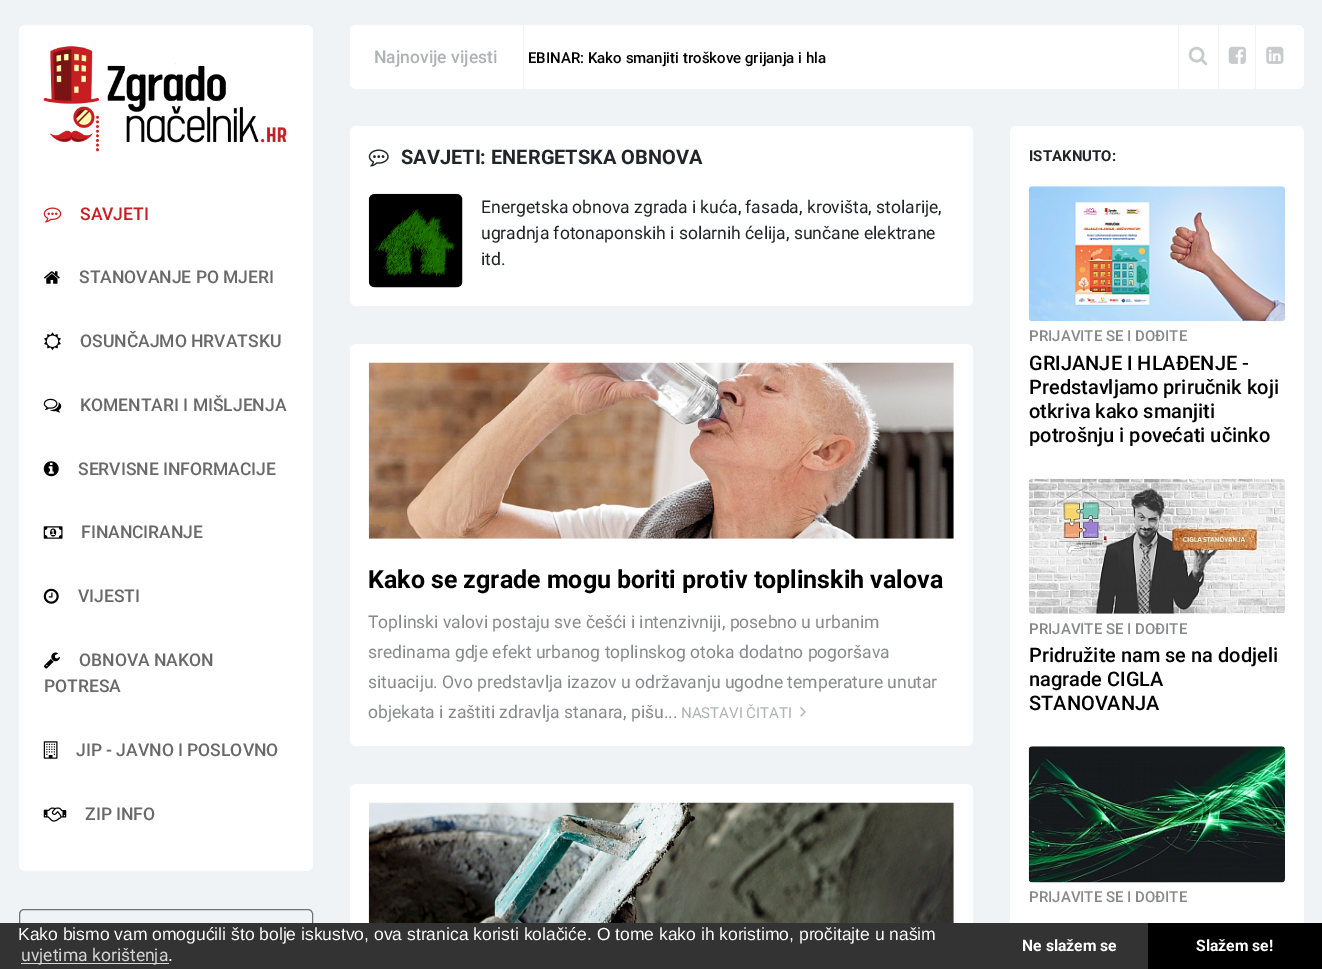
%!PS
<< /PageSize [1322 969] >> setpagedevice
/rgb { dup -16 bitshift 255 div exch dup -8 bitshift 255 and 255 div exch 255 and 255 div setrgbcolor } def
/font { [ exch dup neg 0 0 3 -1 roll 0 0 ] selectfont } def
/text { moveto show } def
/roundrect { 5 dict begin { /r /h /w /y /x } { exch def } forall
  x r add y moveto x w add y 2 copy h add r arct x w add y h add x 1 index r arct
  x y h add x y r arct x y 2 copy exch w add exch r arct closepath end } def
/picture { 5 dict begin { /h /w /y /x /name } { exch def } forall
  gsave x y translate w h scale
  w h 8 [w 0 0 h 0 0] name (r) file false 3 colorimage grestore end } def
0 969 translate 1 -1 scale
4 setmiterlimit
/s1 { /Roboto-Medium 17.5 font 16#C81E23 rgb } def
/s2 { /Roboto-Medium 17.5 font 16#696969 rgb } def
/s3 { /Roboto-Medium 17.5 font 16#AFB1B2 rgb } def
/s4 { /Roboto-Medium 15 font 16#000000 rgb } def
/s5 { /Roboto-Bold 20 font 16#212529 rgb } def
/s6 { /Roboto-Regular 17.5 font 16#212529 rgb } def
/s7 { /Roboto-Bold 25 font 16#000000 rgb } def
/s8 { /Roboto-Regular 17.5 font 16#88898A rgb } def
/s9 { /Roboto-Regular 15 font 16#AFB1B2 rgb } def
/s10 { /Roboto-Bold 15 font 16#212529 rgb } def
/s11 { /Roboto-Medium 15 font 16#88898A rgb } def
/s12 { /Roboto-Medium 20 font 16#000000 rgb } def
/s13 { /LiberationSans-Regular 17.5 font 16#FFFFFF rgb } def
/s14 { /Roboto-Regular 17.5 font 16#D6D6D6 rgb } def
/s15 { /Roboto-Bold 15.75 font 16#FFFFFF rgb } def
16#F0F3F5 rgb
0 0 1322 969 rectfill
16#FFFFFF rgb
19 25 294 846 6 roundrect fill
(pic1.raw) 43 46 244 106 picture
(pic2.raw) 43 207 19 16 picture
s1
(SAVJETI) 80 220 text
(pic3.raw) 44 271 16 13 picture
s2
(STANOVANJE PO MJERI) 79 283 text
(pic4.raw) 44 332 17 18 picture
(OSUNČAJMO HRVATSKU) 80 347 text
(pic5.raw) 43 398 19 15 picture
(KOMENTARI I MIŠLJENJA) 80 411 text
(pic6.raw) 43 461 16 16 picture
(SERVISNE INFORMACIJE) 78 475 text
(pic7.raw) 43 526 20 13 picture
(FINANCIRANJE) 81 538 text
(pic8.raw) 43 588 16 16 picture
(VIJESTI) 78 602 text
(pic9.raw) 44 652 16 17 picture
(OBNOVA NAKON) 79 666 text
(POTRESA) 44 692 text
(pic10.raw) 43 741 15 18 picture
(JIP - JAVNO I POSLOVNO) 76 756 text
(pic11.raw) 43 807 24 15 picture
(ZIP INFO) 85 820 text
16#6C757D rgb
19.5 909.5 293 40 4.5 roundrect stroke
16#FFFFFF rgb
350 25 954 64 6 roundrect fill
356 25 moveto 524 25 lineto 524 89 lineto 356 89 lineto 352.5 89 350 86.5 350 83 curveto 350 31 lineto 350 27.5 352.5 25 356 25 curveto closepath fill
16#F0F3F5 rgb
523 25 1 64 rectfill
s3
(Najnovije vijesti) 374 63 text
s4
(EBINAR: Kako smanjiti troškove grijanja i hla) 528 63 text
16#F0F3F5 rgb
1178 25 1 64 rectfill
(pic12.raw) 1188 46 20 20 picture
1218 25 1 64 rectfill
(pic13.raw) 1228 46 18 18 picture
1255 25 1 64 rectfill
(pic14.raw) 1266 46 18 18 picture
16#FFFFFF rgb
350 126 623 180 6 roundrect fill
(pic15.raw) 368 149 21 18 picture
s5
(SAVJETI: ENERGETSKA OBNOVA) 401 164 text
(pic16.raw) 368 193 95 95 picture
s6
(Energetska obnova zgrada i kuća, fasada, krovišta, stolarije,) 481 213 text
(ugradnja fotonaponskih i solarnih ćelija, sunčane elektrane) 481 239 text
(itd.) 481 265 text
16#FFFFFF rgb
350 344 623 402 6 roundrect fill
(pic17.raw) 368 362 586 177 picture
s7
(Kako se zgrade mogu boriti protiv toplinskih valova) 368 588 text
s8
(Toplinski valovi postaju sve češći i intenzivniji, posebno u urbanim) 368 628 text
(sredinama gdje efekt urbanog toplinskog otoka dodatno pogoršava) 368 658 text
(situaciju. Ovo predstavlja izazov u održavanju ugodne temperature unutar) 368 688 text
(objekata i zaštiti zdravlja stanara, pišu...) 368 718 text
s9
(NASTAVI ČITATI) 681 718 text
(pic18.raw) 800 707 6 10 picture
16#FFFFFF rgb
350 784 623 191 6 roundrect fill
(pic19.raw) 368 802 586 121 picture
1010 126 294 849 6 roundrect fill
s10
(ISTAKNUTO:) 1029 161 text
(pic20.raw) 1028 186 257 136 picture
s11
(PRIJAVITE SE I DOĐITE) 1029 341 text
s12
(GRIJANJE I HLAĐENJE -) 1029 370 text
(Predstavljamo priručnik koji) 1029 394 text
(otkriva kako smanjiti) 1029 418 text
(potrošnju i povećati učinko) 1029 442 text
(pic21.raw) 1028 478 257 136 picture
s11
(PRIJAVITE SE I DOĐITE) 1029 634 text
s12
(Pridružite nam se na dodjeli) 1029 662 text
(nagrade CIGLA) 1029 686 text
(STANOVANJA) 1029 710 text
(pic22.raw) 1028 746 257 137 picture
s11
(PRIJAVITE SE I DOĐITE) 1029 902 text
16#333333 rgb
0 923 1148 46 rectfill
s13
(Kako bismo vam omogućili što bolje iskustvo, ova stranica koristi kolačiće. O tome kako ih koristimo, pročitajte u našim) 18 940 text
16#D6D6D6 rgb
21 963 148 1 rectfill
s14
(uvjetima korištenja) 21 961 text
s13
(.) 168 961 text
s15
(Ne slažem se) 1022 951 text
16#000000 rgb
1148 923 174 46 rectfill
s15
(Slažem se!) 1196 951 text
showpage
